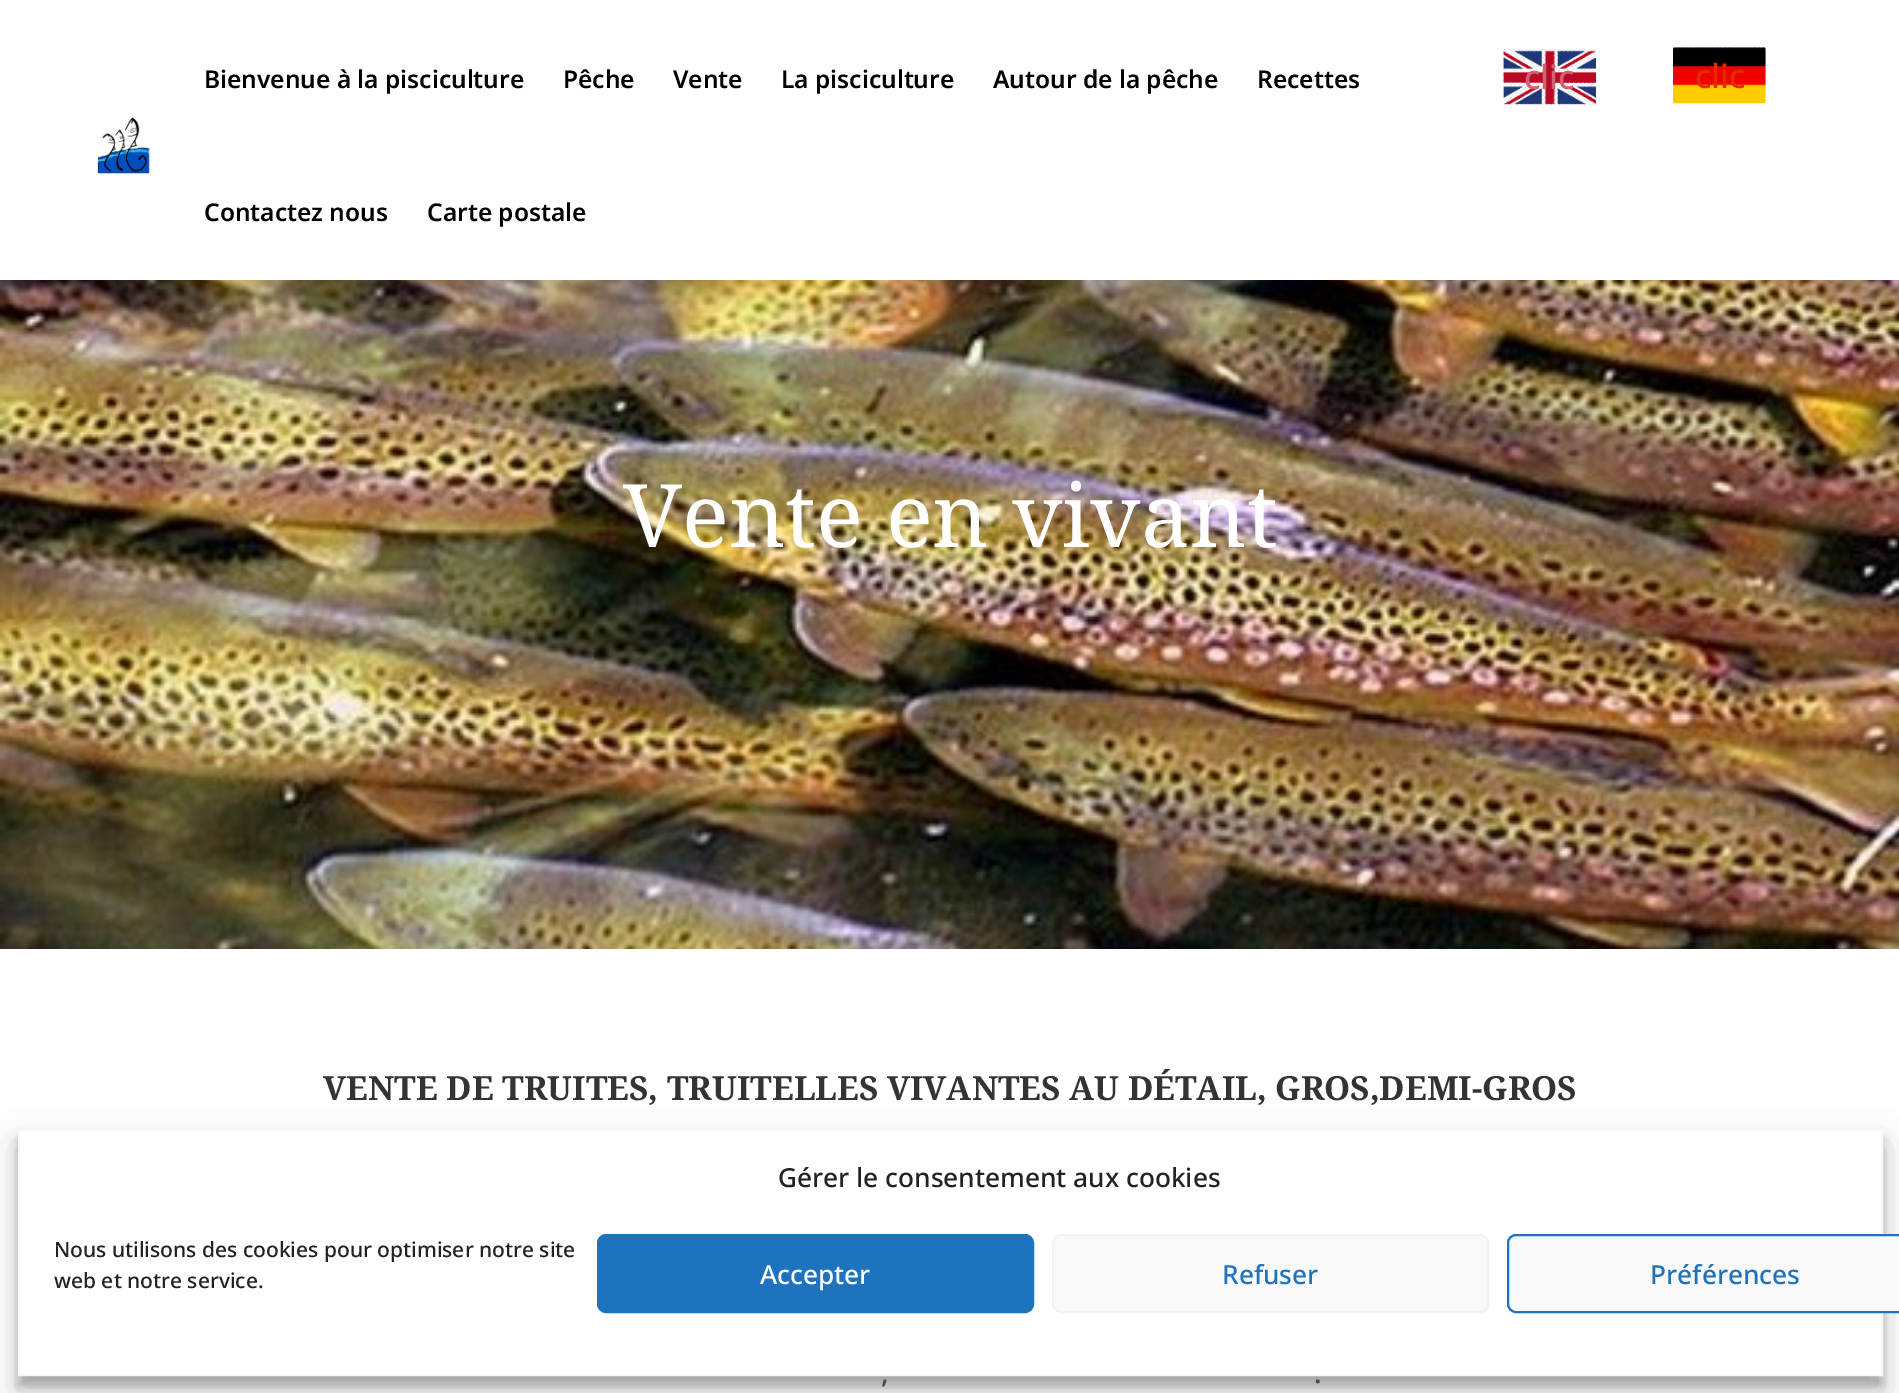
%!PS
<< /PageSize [1899 1393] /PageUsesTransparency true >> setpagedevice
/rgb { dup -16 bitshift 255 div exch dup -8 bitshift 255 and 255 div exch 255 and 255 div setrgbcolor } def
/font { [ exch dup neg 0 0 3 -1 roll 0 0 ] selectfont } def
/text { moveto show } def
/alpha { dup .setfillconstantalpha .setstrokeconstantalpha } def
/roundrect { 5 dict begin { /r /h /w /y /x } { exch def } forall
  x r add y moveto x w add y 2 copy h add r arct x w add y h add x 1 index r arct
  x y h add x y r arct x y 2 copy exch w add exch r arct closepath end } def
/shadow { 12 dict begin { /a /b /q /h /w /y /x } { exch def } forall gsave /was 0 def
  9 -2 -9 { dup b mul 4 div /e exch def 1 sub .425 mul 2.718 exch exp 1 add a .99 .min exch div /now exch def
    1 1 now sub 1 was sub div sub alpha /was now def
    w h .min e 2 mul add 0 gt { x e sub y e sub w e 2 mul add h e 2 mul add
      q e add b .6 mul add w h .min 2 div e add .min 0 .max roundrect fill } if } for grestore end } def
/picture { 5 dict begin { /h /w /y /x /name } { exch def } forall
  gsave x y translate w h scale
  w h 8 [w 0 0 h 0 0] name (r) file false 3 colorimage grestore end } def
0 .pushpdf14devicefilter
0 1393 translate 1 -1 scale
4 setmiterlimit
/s1 { /NotoSans-SemiBold 24.5 font 16#000000 rgb } def
/s2 { /NotoSans-Medium 33.25 font 16#CF6373 rgb } def
/s3 { /NotoSans-Medium 33.25 font 16#E42A00 rgb } def
/s4 { /NotoSerif-Regular 87.5 font 16#FFFFFF rgb } def
/s5 { /NotoSerif-Bold 33.25 font 16#333333 rgb } def
/s6 { /NotoSans-Medium 28 font 16#666666 rgb } def
/s7 { /NotoSans-Medium 26.25 font 16#222222 rgb } def
/s8 { /NotoSans-Medium 21 font 16#222222 rgb } def
/s9 { /NotoSans-Medium 26.25 font 16#FFFFFF rgb } def
/s10 { /NotoSans-Medium 26.25 font 16#1E73BE rgb } def
16#FFFFFF rgb
0 0 1899 1393 rectfill
(pic1.raw) 97 117 53 57 picture
s1
(Bienvenue à la pisciculture) 204 88 text
(Pêche) 563 88 text
(Vente) 673 88 text
(La pisciculture) 781 88 text
(Autour de la pêche) 993 88 text
(Recettes) 1257 88 text
(Contactez nous) 204 221 text
(Carte postale) 427 221 text
(pic2.raw) 1503 49 93 56 picture
s2
(clic) 1524 89 text
(pic3.raw) 1673 47 93 57 picture
s3
(clic) 1695 88 text
(pic4.raw) 0 280 1899 669 picture
s4
(Vente en vivant) 623 547 text
s5
(VENTE DE TRUITES, TRUITELLES VIVANTES AU DÉTAIL, GROS,DEMI-GROS) 323 1100 text
s6
(,) 881 1383 text
(.) 1314 1383 text
16#000000 rgb
18 1139 1865 247 0 5 0.23 shadow
18 1146 1865 247 0 17.5 0.19 shadow
16#FFFFFF rgb
19 1130 moveto 1882 1130 lineto 1882 1375 lineto 19 1375 lineto closepath gsave fill grestore
16#F9F9F9 rgb
2 setlinewidth
stroke
s7
(Gérer le consentement aux cookies) 778 1187 text
s8
(Nous utilisons des cookies pour optimiser notre site) 54 1257 text
(web et notre service.) 54 1288 text
16#1E73BE rgb
598 1235 435 77 8 roundrect gsave fill grestore
stroke
s9
(Accepter) 760 1284 text
16#F9F9F9 rgb
1053 1235 435 77 8 roundrect gsave fill grestore
16#F2F2F2 rgb
stroke
s10
(Refuser) 1222 1284 text
16#F9F9F9 rgb
1508 1235 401 77 8 roundrect gsave fill grestore
16#1E73BE rgb
stroke
(Préférences) 1650 1284 text
.poppdf14devicefilter showpage
